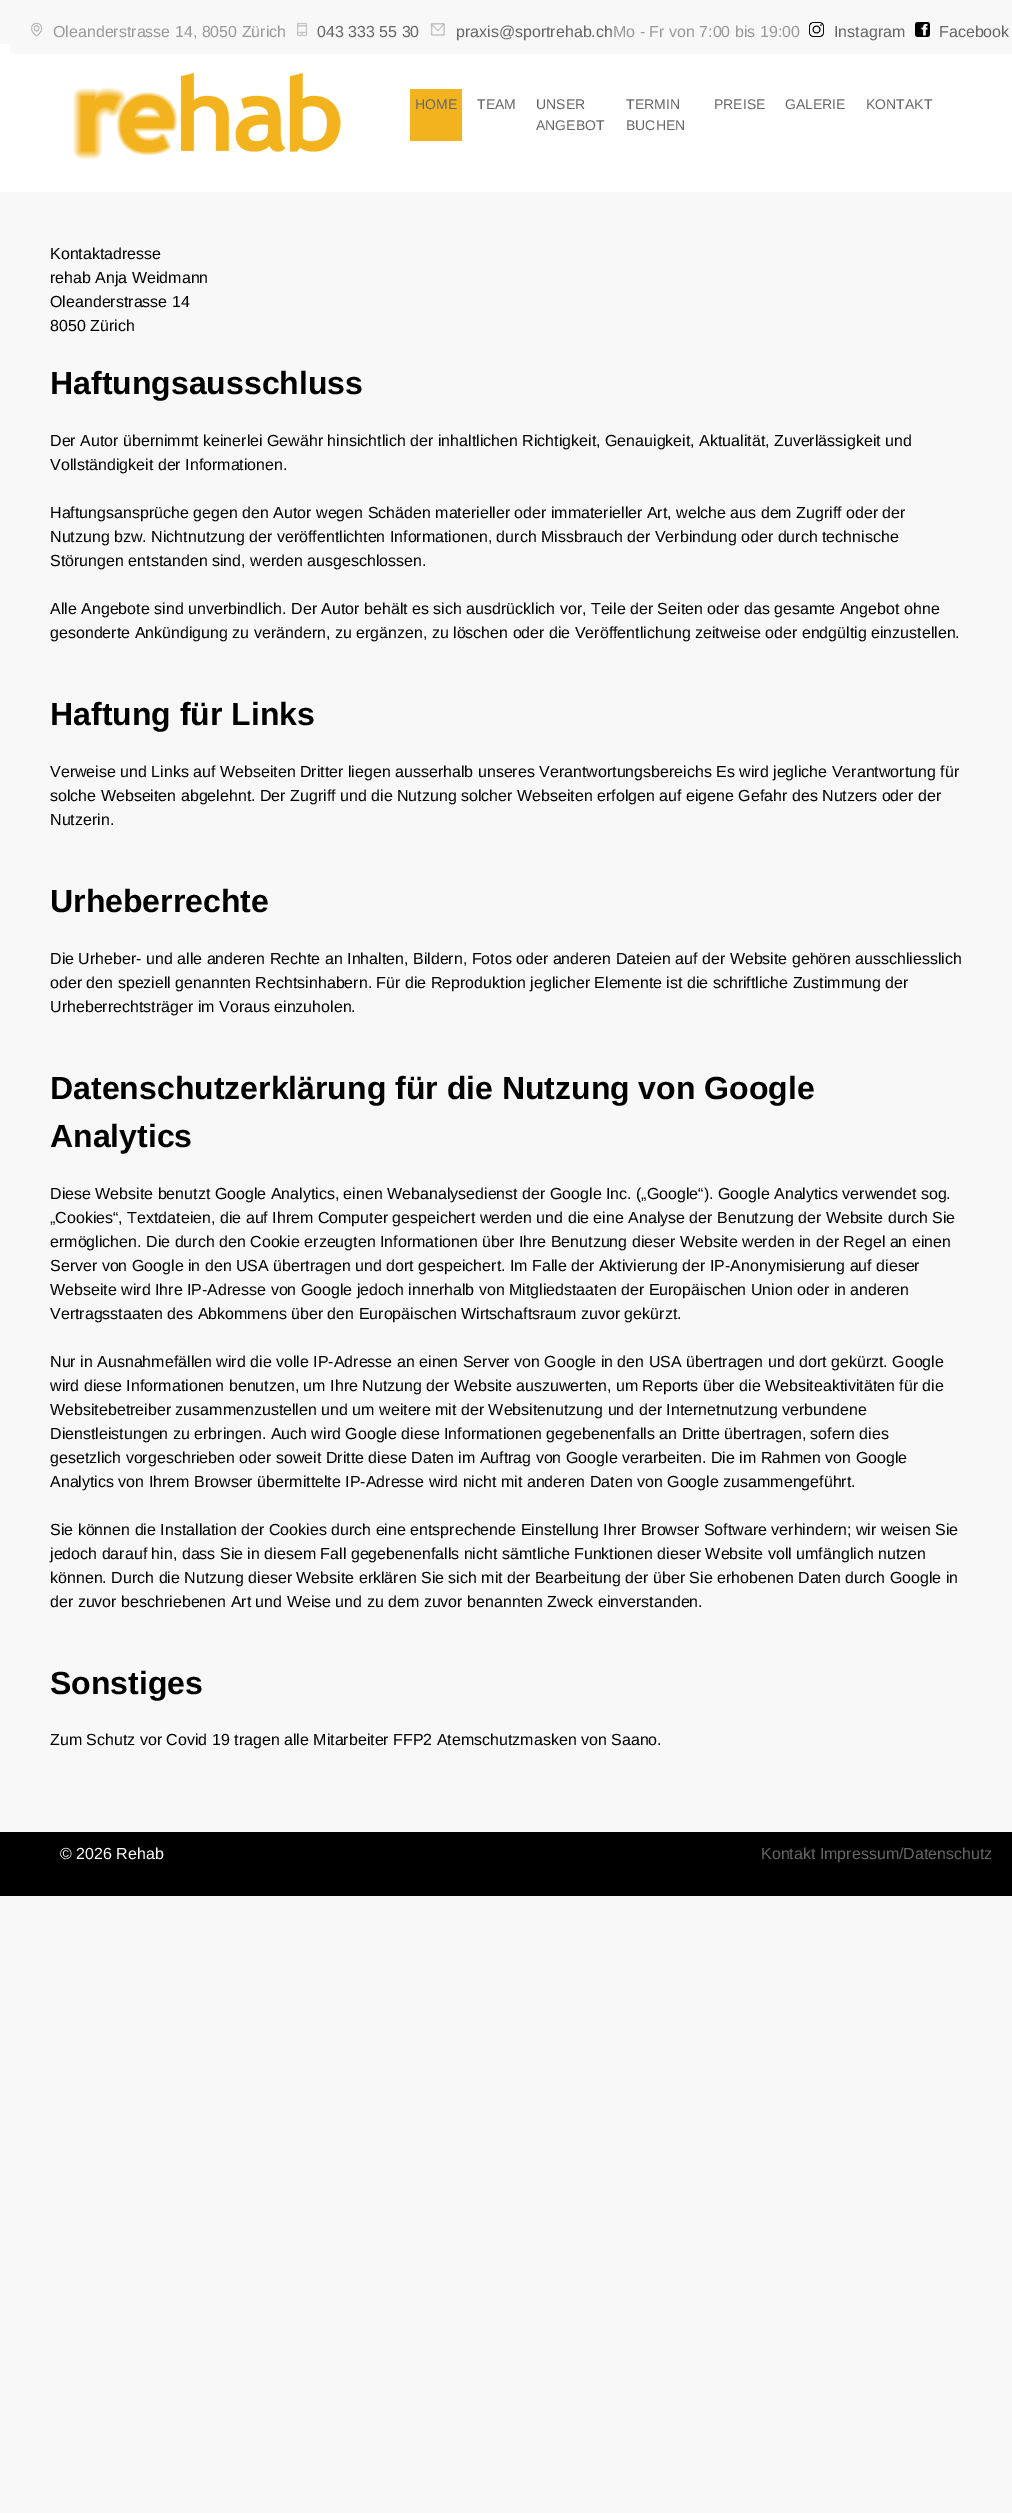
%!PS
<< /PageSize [1012 2513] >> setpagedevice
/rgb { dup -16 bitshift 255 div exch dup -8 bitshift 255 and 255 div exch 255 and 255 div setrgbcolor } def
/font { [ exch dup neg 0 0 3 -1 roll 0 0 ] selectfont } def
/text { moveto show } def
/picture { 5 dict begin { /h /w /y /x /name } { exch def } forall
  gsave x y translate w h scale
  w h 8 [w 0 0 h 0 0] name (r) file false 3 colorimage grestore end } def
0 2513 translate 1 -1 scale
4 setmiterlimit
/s1 { /LiberationSans-Regular 16 font 16#999999 rgb } def
/s2 { /LiberationSans-Regular 16 font 16#666666 rgb } def
/s3 { /LiberationSans-Regular 14 font 16#666666 rgb } def
/s4 { /LiberationSans-Regular 16 font 16#000000 rgb } def
/s5 { /LiberationSans-Bold 32 font 16#000000 rgb } def
/s6 { /LiberationSans-Regular 16 font 16#FFFFFF rgb } def
16#F8F8F8 rgb
0 0 1012 2513 rectfill
16#FFFFFF rgb
0 44 1012 148 rectfill
16#F8F8F8 rgb
10 44 1002 10 rectfill
(pic1.raw) 30 22 13 15 picture
s1
(Oleanderstrasse 14, 8050 Zürich) 53 37 text
(pic2.raw) 297 22 11 15 picture
s2
(043 333 55 30) 317 37 text
(pic3.raw) 430 23 15 13 picture
(praxis@sportrehab.ch) 456 37 text
s1
(Mo - Fr von 7:00 bis 19:00) 613 37 text
(pic4.raw) 809 22 15 15 picture
s2
(Instagram) 834 37 text
(pic5.raw) 915 22 15 15 picture
(Facebook) 939 37 text
(pic6.raw) 72 73 269 87 picture
16#F3B31F rgb
410 89 52 52 rectfill
s3
(HOME) 415 109 text
(TEAM) 477 109 text
(UNSER) 536 109 text
(ANGEBOT) 536 130 text
(TERMIN) 626 109 text
(BUCHEN) 626 130 text
(PREISE) 714 109 text
(GALERIE) 785 109 text
(KONTAKT) 866 109 text
s4
(Kontaktadresse) 50 259 text
(rehab Anja Weidmann) 50 283 text
(Oleanderstrasse 14) 50 307 text
(8050 Zürich) 50 331 text
s5
(Haftungsausschluss) 50 394 text
s4
(Der Autor übernimmt keinerlei Gewähr hinsichtlich der inhaltlichen Richtigkeit, Genauigkeit, Aktualität, Zuverlässigkeit und) 50 446 text
(Vollständigkeit der Informationen.) 50 470 text
(Haftungsansprüche gegen den Autor wegen Schäden materieller oder immaterieller Art, welche aus dem Zugriff oder der) 50 518 text
(Nutzung bzw. Nichtnutzung der veröffentlichten Informationen, durch Missbrauch der Verbindung oder durch technische) 50 542 text
(Störungen entstanden sind, werden ausgeschlossen.) 50 566 text
(Alle Angebote sind unverbindlich. Der Autor behält es sich ausdrücklich vor, Teile der Seiten oder das gesamte Angebot ohne) 50 614 text
(gesonderte Ankündigung zu verändern, zu ergänzen, zu löschen oder die Veröffentlichung zeitweise oder endgültig einzustellen.) 50 638 text
s5
(Haftung für Links) 50 725 text
s4
(Verweise und Links auf Webseiten Dritter liegen ausserhalb unseres Verantwortungsbereichs Es wird jegliche Verantwortung für) 50 777 text
(solche Webseiten abgelehnt. Der Zugriff und die Nutzung solcher Webseiten erfolgen auf eigene Gefahr des Nutzers oder der) 50 801 text
(Nutzerin.) 50 825 text
s5
(Urheberrechte) 50 912 text
s4
(Die Urheber- und alle anderen Rechte an Inhalten, Bildern, Fotos oder anderen Dateien auf der Website gehören ausschliesslich) 50 964 text
(oder den speziell genannten Rechtsinhabern. Für die Reproduktion jeglicher Elemente ist die schriftliche Zustimmung der) 50 988 text
(Urheberrechtsträger im Voraus einzuholen.) 50 1012 text
s5
(Datenschutzerklärung für die Nutzung von Google) 50 1099 text
(Analytics) 50 1147 text
s4
(Diese Website benutzt Google Analytics, einen Webanalysedienst der Google Inc. \(„Google“\). Google Analytics verwendet sog.) 50 1199 text
(„Cookies“, Textdateien, die auf Ihrem Computer gespeichert werden und die eine Analyse der Benutzung der Website durch Sie) 50 1223 text
(ermöglichen. Die durch den Cookie erzeugten Informationen über Ihre Benutzung dieser Website werden in der Regel an einen) 50 1247 text
(Server von Google in den USA übertragen und dort gespeichert. Im Falle der Aktivierung der IP-Anonymisierung auf dieser) 50 1271 text
(Webseite wird Ihre IP-Adresse von Google jedoch innerhalb von Mitgliedstaaten der Europäischen Union oder in anderen) 50 1295 text
(Vertragsstaaten des Abkommens über den Europäischen Wirtschaftsraum zuvor gekürzt.) 50 1319 text
(Nur in Ausnahmefällen wird die volle IP-Adresse an einen Server von Google in den USA übertragen und dort gekürzt. Google) 50 1367 text
(wird diese Informationen benutzen, um Ihre Nutzung der Website auszuwerten, um Reports über die Websiteaktivitäten für die) 50 1391 text
(Websitebetreiber zusammenzustellen und um weitere mit der Websitenutzung und der Internetnutzung verbundene) 50 1415 text
(Dienstleistungen zu erbringen. Auch wird Google diese Informationen gegebenenfalls an Dritte übertragen, sofern dies) 50 1439 text
(gesetzlich vorgeschrieben oder soweit Dritte diese Daten im Auftrag von Google verarbeiten. Die im Rahmen von Google) 50 1463 text
(Analytics von Ihrem Browser übermittelte IP-Adresse wird nicht mit anderen Daten von Google zusammengeführt.) 50 1487 text
(Sie können die Installation der Cookies durch eine entsprechende Einstellung Ihrer Browser Software verhindern; wir weisen Sie) 50 1535 text
(jedoch darauf hin, dass Sie in diesem Fall gegebenenfalls nicht sämtliche Funktionen dieser Website voll umfänglich nutzen) 50 1559 text
(können. Durch die Nutzung dieser Website erklären Sie sich mit der Bearbeitung der über Sie erhobenen Daten durch Google in) 50 1583 text
(der zuvor beschriebenen Art und Weise und zu dem zuvor benannten Zweck einverstanden.) 50 1607 text
s5
(Sonstiges) 50 1694 text
s4
(Zum Schutz vor Covid 19 tragen alle Mitarbeiter FFP2 Atemschutzmasken von Saano.) 50 1745 text
0 1832 1012 64 rectfill
s6
(© 2026 Rehab) 60 1859 text
s2
(Kontakt Impressum/Datenschutz) 761 1859 text
showpage
